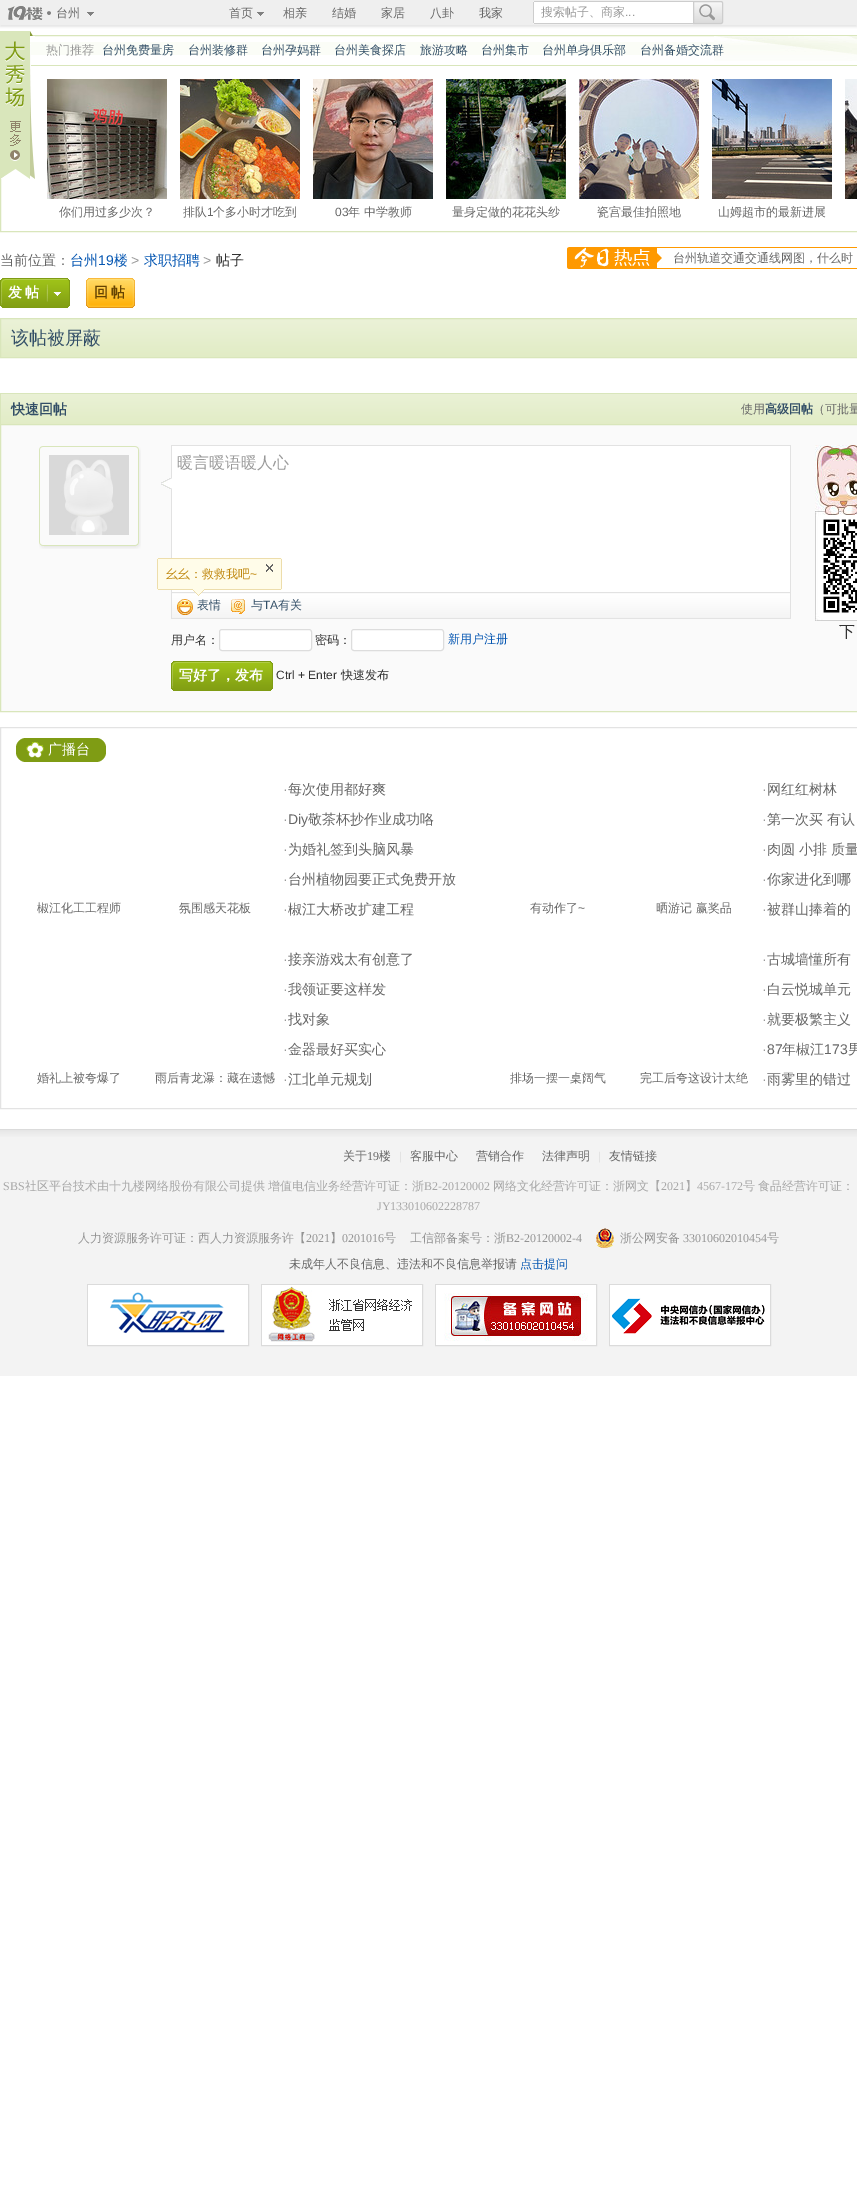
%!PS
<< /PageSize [857 2199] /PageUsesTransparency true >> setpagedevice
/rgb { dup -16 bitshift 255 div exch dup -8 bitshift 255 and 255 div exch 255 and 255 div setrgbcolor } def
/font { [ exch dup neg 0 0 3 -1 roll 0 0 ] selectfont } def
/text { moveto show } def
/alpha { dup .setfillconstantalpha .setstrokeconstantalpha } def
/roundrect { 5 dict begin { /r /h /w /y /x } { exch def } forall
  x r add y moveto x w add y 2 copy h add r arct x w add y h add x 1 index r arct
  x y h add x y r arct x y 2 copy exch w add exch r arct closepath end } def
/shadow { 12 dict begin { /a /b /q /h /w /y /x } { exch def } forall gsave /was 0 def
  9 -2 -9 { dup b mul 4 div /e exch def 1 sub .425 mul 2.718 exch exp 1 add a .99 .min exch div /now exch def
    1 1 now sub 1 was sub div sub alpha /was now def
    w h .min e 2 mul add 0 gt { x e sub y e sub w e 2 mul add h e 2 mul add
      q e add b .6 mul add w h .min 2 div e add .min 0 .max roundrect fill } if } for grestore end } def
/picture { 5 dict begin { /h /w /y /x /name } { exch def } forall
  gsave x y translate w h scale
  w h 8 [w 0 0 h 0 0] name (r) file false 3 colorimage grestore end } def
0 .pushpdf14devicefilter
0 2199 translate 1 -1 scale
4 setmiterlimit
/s1 { /WenQuanYiZenHei-Medium 12 font 16#666666 rgb } def
/s2 { /WenQuanYiZenHei-Medium 12 font 16#999999 rgb } def
/s3 { /LiberationSans-Regular 12 font 16#999999 rgb } def
/s4 { /WenQuanYiZenHei-Medium 12 font 16#334F67 rgb } def
/s5 { /LiberationSans-Regular 12 font 16#666666 rgb } def
/s6 { /WenQuanYiZenHei-Medium 14 font 16#666666 rgb } def
/s7 { /WenQuanYiZenHei-Medium 14 font 16#0657B2 rgb } def
/s8 { /LiberationSans-Regular 14 font 16#0657B2 rgb } def
/s9 { /LiberationSans-Regular 14 font 16#999999 rgb } def
/s10 { /WenQuanYiZenHei-Medium 14 font 16#333333 rgb } def
/s11 { /WenQuanYiZenHei-Medium 18 font 16#334F67 rgb } def
/s12 { /WenQuanYiZenHei-Bold 14 font 16#334F67 rgb } def
/s13 { /WenQuanYiZenHei-Bold 12 font 16#334F67 rgb } def
/s14 { /WenQuanYiZenHei-Medium 16 font 16#999999 rgb } def
/s15 { /WenQuanYiZenHei-Medium 12 font 16#C0880F rgb } def
/s16 { /LiberationSans-Regular 12 font 16#C0880F rgb } def
/s17 { /LiberationSans-Regular 12 font 16#334F67 rgb } def
/s18 { /WenQuanYiZenHei-Medium 12 font 16#333333 rgb } def
/s19 { /WenQuanYiZenHei-Medium 12 font 16#0657B2 rgb } def
/s20 { /WenQuanYiZenHei-Medium 16 font 16#333333 rgb } def
/s21 { /WenQuanYiZenHei-Bold 14 font 16#FFFFFF rgb } def
/s22 { /LiberationSans-Regular 12 font 16#333333 rgb } def
/s23 { /WenQuanYiZenHei-Medium 14 font 16#FFFFFF rgb } def
/s24 { /LiberationSans-Regular 14 font 16#666666 rgb } def
/s25 { /LiberationSerif-Regular 12 font 16#666666 rgb } def
/s26 { /LiberationSerif-Regular 12 font 16#D5D5D5 rgb } def
/s27 { /LiberationSerif-Regular 12 font 16#A7A7A7 rgb } def
/s28 { /WenQuanYiZenHei-Medium 12 font 16#A7A7A7 rgb } def
/s29 { /WenQuanYiZenHei-Medium 12 font 16#939393 rgb } def
/s30 { /LiberationSerif-Regular 12 font 16#939393 rgb } def
16#FFFFFF rgb
0 0 857 2199 rectfill
16#000000 rgb
0 2 857 25 0 1 0.1 shadow
16#EFEFEF rgb
0 0 857 25 rectfill
(pic1.raw) 8 6 43 14 picture
s1
(台州) 56 17 text
(pic2.raw) 87 12 7 4 picture
(pic2.raw) 257 12 7 4 picture
(首页) 229 17 text
(相亲) 283 17 text
(结婚) 332 17 text
(家居) 381 17 text
(八卦) 430 17 text
(我家) 479 17 text
16#FFFFFF rgb
535 1 moveto 693 1 lineto 693 24 lineto 535 24 lineto 534 24 533 23 533 22 curveto 533 3 lineto 533 2 534 1 535 1 curveto closepath fill
16#CDCDCD rgb
534 1 159 1 rectfill
534 23 159 1 rectfill
533 2 1 21 rectfill
s2
(搜索帖子、商家) 541 16 text
s3
(...) 625 16 text
gsave 694 2 moveto 723 2 lineto 723 23 lineto 694 23 lineto closepath clip newpath
<< /ShadingType 2 /ColorSpace /DeviceRGB /Coords [708 2 708 23] /Extend [true true] /Function << /FunctionType 2 /Domain [0 1] /C0 [0.969 0.969 0.969] /C1 [0.859 0.859 0.859] /N 1 >> >> shfill grestore
16#CDCDCD rgb
693.5 1.5 moveto 721 1.5 lineto 722 1.5 722.5 2 722.5 3 curveto 722.5 22 lineto 722.5 23 722 23.5 721 23.5 curveto 693.5 23.5 lineto closepath stroke
(pic3.raw) 699 4 16 17 picture
16#D9E6BB rgb
0.5 35.5 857 196 rectstroke
16#FBFDF7 rgb
30 42 684 13 rectfill
16#D9E6BB rgb
26 65 831 1 rectfill
(pic4.raw) 0 31 35 148 picture
(pic5.raw) 714 36 143 25 picture
s2
(热门推荐) 46 54 text
s4
(台州免费量房) 102 54 text
(台州装修群) 188 54 text
(台州孕妈群) 261 54 text
(台州美食探店) 334 54 text
(旅游攻略) 420 54 text
(台州集市) 481 54 text
(台州单身俱乐部) 542 54 text
(台州备婚交流群) 640 54 text
(pic6.raw) 845 79 12 120 picture
(pic7.raw) 47 79 120 120 picture
s1
(你们用过多少次？) 59 216 text
(pic8.raw) 180 79 120 120 picture
(排队) 183 216 text
s5
(1) 207 216 text
s1
(个多小时才吃到) 213 216 text
(pic9.raw) 313 79 120 120 picture
s5
(03) 335 216 text
s1
(年 中学教师) 348 216 text
(pic10.raw) 446 79 120 120 picture
(量身定做的花花头纱) 452 216 text
(pic11.raw) 579 79 120 120 picture
(瓷宫最佳拍照地) 597 216 text
(pic12.raw) 712 79 120 120 picture
(山姆超市的最新进展) 718 216 text
s6
(当前位置：) 0 265 text
s7
(台州) 70 265 text
s8
(19) 98 265 text
s7
(楼) 114 265 text
s9
(>) 131 265 text
s7
(求职招聘) 144 265 text
s9
(>) 203 265 text
s10
(帖子) 216 265 text
(pic13.raw) 567 247 290 22 picture
s1
(台州轨道交通交通线网图，什么时) 673 262 text
(pic14.raw) 0 278 10 30 picture
(pic15.raw) 10 278 60 30 picture
/WenQuanYiZenHei-Bold 14 font
16#FFFFFF rgb
8 297 moveto -1 0 32 (发 帖) widthshow
(pic16.raw) 86 278 9 30 picture
(pic17.raw) 95 278 40 30 picture
16#654302 rgb
94 297 moveto -1 0 32 (回 帖) widthshow
(pic18.raw) 1 319 856 38 picture
16#D9E6BB rgb
0.5 318.5 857 39 rectstroke
s11
(该帖被屏蔽) 11 344 text
(pic19.raw) 1 394 856 30 picture
16#D9E6BB rgb
0 393 857 1 rectfill
0 393 1 31 rectfill
s12
(快速回帖) 11 414 text
s1
(使用) 741 413 text
s13
(高级回帖) 765 413 text
s1
(（可批量) 813 413 text
16#FAFAFA rgb
0.5 424.5 moveto 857.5 424.5 lineto 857.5 711.5 lineto 0.5 711.5 lineto closepath gsave fill grestore
16#D9E6BB rgb
stroke
(pic20.raw) 39 446 102 103 picture
(pic21.raw) 49 455 80 80 picture
16#FFFFFF rgb
172 446 618 146 rectfill
16#E2E2E2 rgb
171 445 620 1 rectfill
790 445 1 147 rectfill
171 445 1 147 rectfill
s14
(暖言暖语暖人心) 177 468 text
(pic22.raw) 161 478 11 11 picture
(pic23.raw) 172 594 618 24 picture
16#E2E2E2 rgb
171 592 620 1 rectfill
790 592 1 27 rectfill
16#E3E3E3 rgb
171 618 620 1 rectfill
16#E2E2E2 rgb
171 592 1 27 rectfill
(pic24.raw) 177 599 16 16 picture
16#FFFCE9 rgb
157 558 125 32 rectfill
16#EDDDAB rgb
158 558 123 1 rectfill
281 559 1 30 rectfill
157 559 1 30 rectfill
s15
(幺幺：救救我吧) 166 578 text
s16
(~) 250 578 text
(pic25.raw) 266 564 7 8 picture
16#EDDDAB rgb
158 589 123 1 rectfill
(pic26.raw) 193 589 11 7 picture
s4
(表情) 197 609 text
(pic27.raw) 231 599 14 15 picture
(与) 251 609 text
s17
(TA) 263 609 text
s4
(有关) 278 609 text
s18
(用户名：) 171 644 text
16#FFFFFF rgb
219.5 629.5 92 21 2.5 roundrect gsave fill grestore
16#DDDDDD rgb
stroke
s18
(密码：) 315 644 text
16#FFFFFF rgb
351.5 629.5 92 21 2.5 roundrect gsave fill grestore
16#DDDDDD rgb
stroke
s19
(新用户注册) 448 643 text
(pic28.raw) 815 445 42 176 picture
s20
(下) 839 637 text
(pic29.raw) 171 661 10 30 picture
(pic30.raw) 181 661 92 30 picture
s21
(写好了，发布) 179 680 text
s22
(Ctrl + Enter) 276 679 text
s18
(快速发布) 341 679 text
16#E3E3E3 rgb
0.5 727.5 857 381 rectstroke
16#7F9C14 rgb
16 738 90 24 10 roundrect fill
(pic31.raw) 26 742 18 16 picture
s23
(广播台) 48 754 text
s9
(·) 283 794 text
s6
(每次使用都好爽) 288 794 text
s9
(·) 283 824 text
s24
(Diy) 288 824 text
s6
(敬茶杯抄作业成功咯) 308 824 text
s9
(·) 283 854 text
s6
(为婚礼签到头脑风暴) 288 854 text
s9
(·) 283 884 text
s6
(台州植物园要正式免费开放) 288 884 text
s1
(椒江化工工程师) 37 912 text
(氛围感天花板) 179 912 text
s9
(·) 283 914 text
s6
(椒江大桥改扩建工程) 288 914 text
s9
(·) 762 794 text
s6
(网红红树林) 767 794 text
s9
(·) 762 824 text
s6
(第一次买 有认) 767 824 text
s9
(·) 762 854 text
s6
(肉圆 小排 质量) 767 854 text
s9
(·) 762 884 text
s6
(你家进化到哪) 767 884 text
s1
(有动作了) 530 912 text
s5
(~) 578 912 text
s1
(晒游记 赢奖品) 656 912 text
s9
(·) 762 914 text
s6
(被群山捧着的) 767 914 text
s9
(·) 283 964 text
s6
(接亲游戏太有创意了) 288 964 text
s9
(·) 283 994 text
s6
(我领证要这样发) 288 994 text
s9
(·) 283 1024 text
s6
(找对象) 288 1024 text
s9
(·) 283 1054 text
s6
(金器最好买实心) 288 1054 text
s1
(婚礼上被夸爆了) 37 1082 text
(雨后青龙瀑：藏在遗憾) 155 1082 text
s9
(·) 283 1084 text
s6
(江北单元规划) 288 1084 text
s9
(·) 762 964 text
s6
(古城墙懂所有) 767 964 text
s9
(·) 762 994 text
s6
(白云悦城单元) 767 994 text
s9
(·) 762 1024 text
s6
(就要极繁主义) 767 1024 text
s9
(·) 762 1054 text
s24
(87) 767 1054 text
s6
(年椒江) 782 1054 text
s24
(173) 824 1054 text
s6
(男) 848 1054 text
s1
(排场一摆一桌阔气) 510 1082 text
(完工后夸这设计太绝) 640 1082 text
s9
(·) 762 1084 text
s6
(雨雾里的错过) 767 1084 text
16#F3F3F3 rgb
0 1138 857 238 rectfill
16#DBDBDB rgb
0 1129 857 1 rectfill
gsave 0 1130 moveto 857 1130 lineto 857 1138 lineto 0 1138 lineto closepath clip newpath
<< /ShadingType 2 /ColorSpace /DeviceRGB /Coords [0 1130 0 1138] /Extend [true true] /Function << /FunctionType 2 /Domain [0 1] /C0 [0.902 0.902 0.902] /C1 [0.953 0.953 0.953] /N 1 >> >> shfill grestore
s1
(关于) 343 1160 text
s25
(19) 367 1160 text
s1
(楼) 379 1160 text
s26
(|) 399 1160 text
s1
(客服中心) 410 1160 text
(营销合作) 476 1160 text
(法律声明) 542 1160 text
s26
(|) 598 1160 text
s1
(友情链接) 609 1160 text
s27
(SBS) 3 1190 text
s28
(社区平台技术由十九楼网络股份有限公司提供) 25 1190 text
(增值电信业务经营许可证：浙) 268 1190 text
s27
(B2-20120002) 424 1190 text
s28
(网络文化经营许可证：浙网文【) 493 1190 text
s27
(2021) 661 1190 text
s28
(】) 685 1190 text
s27
(4567-172) 697 1190 text
s28
(号) 743 1190 text
(食品经营许可证：) 758 1190 text
s27
(JY133010602228787) 377 1210 text
s29
(人力资源服务许可证：西人力资源服务许【) 78 1242 text
s30
(2021) 306 1242 text
s29
(】) 330 1242 text
s30
(0201016) 342 1242 text
s29
(号) 384 1242 text
(工信部备案号：浙) 410 1242 text
s30
(B2-20120002-4) 506 1242 text
(pic32.raw) 596 1228 18 20 picture
s29
(浙公网安备) 620 1242 text
s30
(33010602010454) 683 1242 text
s29
(号) 767 1242 text
s1
(未成年人不良信息、违法和不良信息举报请) 289 1268 text
s19
(点击提问) 520 1268 text
16#DBDBDB rgb
87.5 1284.5 161 61 rectstroke
261.5 1284.5 161 61 rectstroke
435.5 1284.5 161 61 rectstroke
609.5 1284.5 161 61 rectstroke
(pic33.raw) 88 1285 160 60 picture
(pic34.raw) 262 1285 160 60 picture
(pic35.raw) 436 1285 160 60 picture
(pic36.raw) 610 1285 160 60 picture
.poppdf14devicefilter showpage
